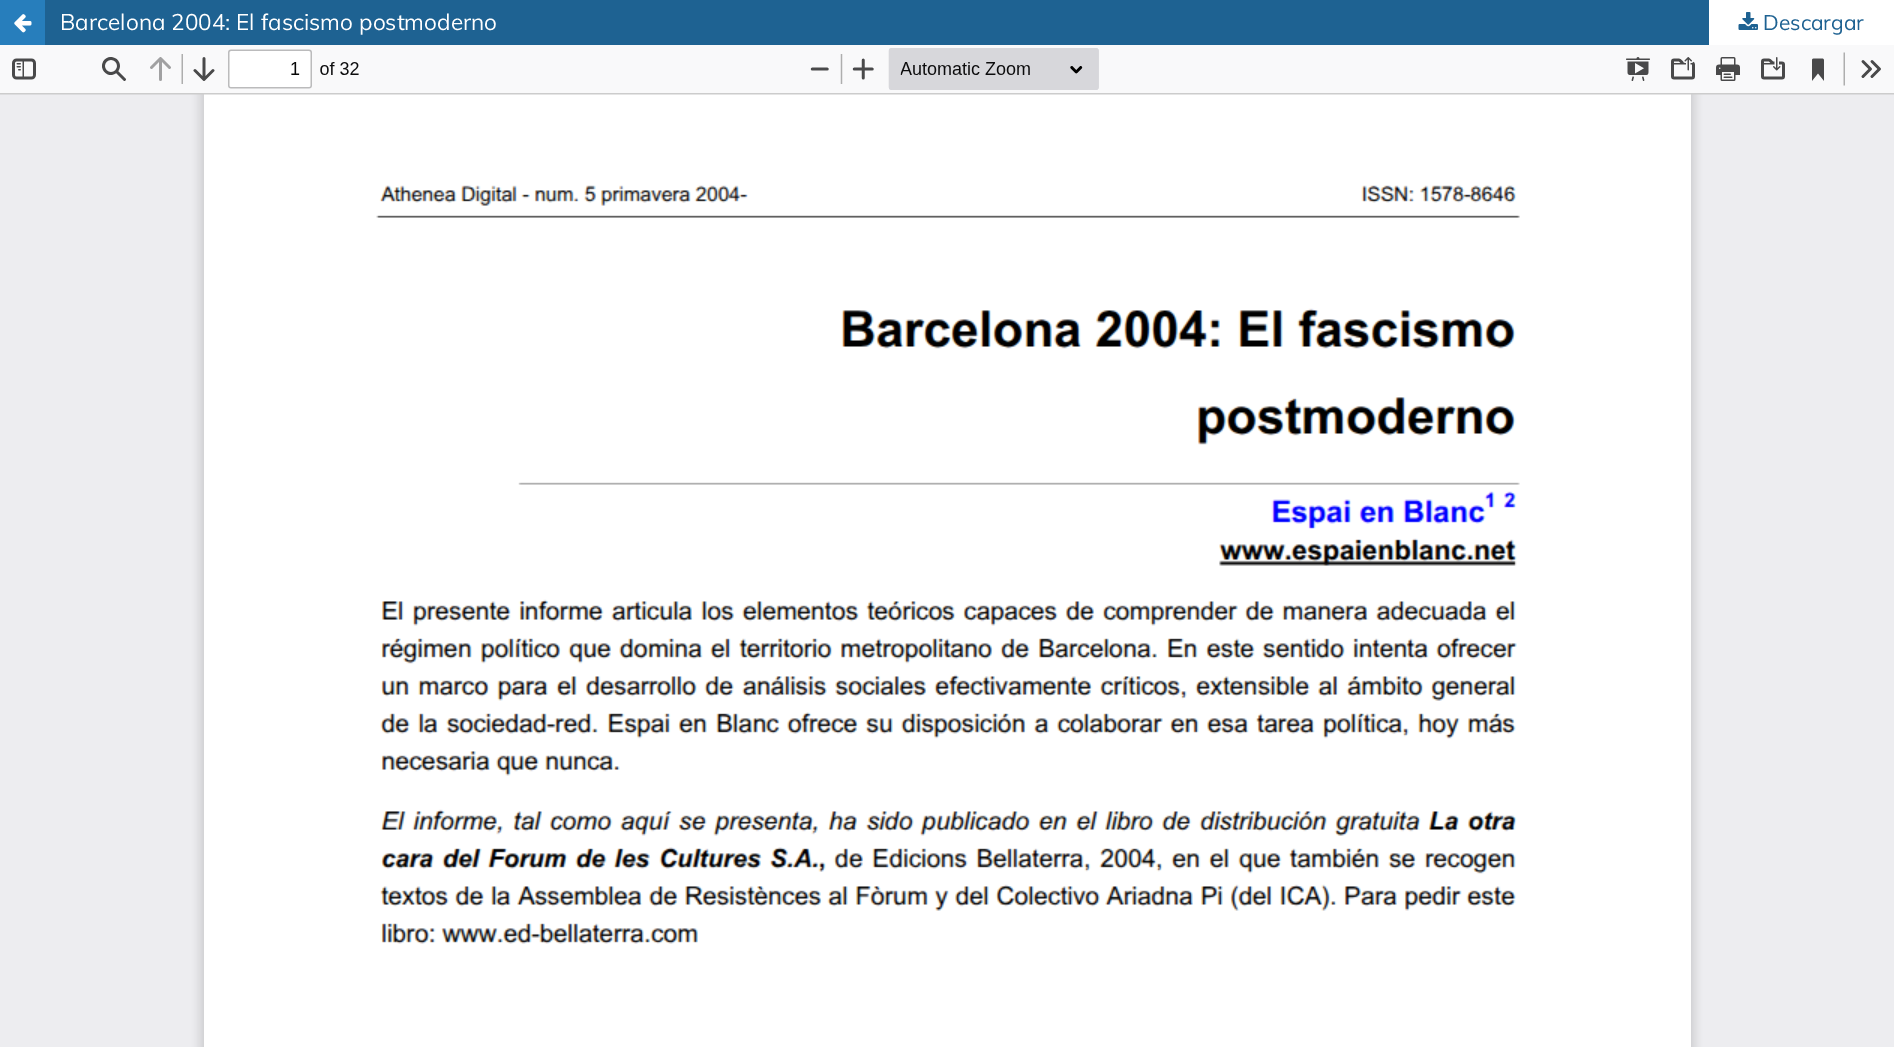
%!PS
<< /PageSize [1894 1047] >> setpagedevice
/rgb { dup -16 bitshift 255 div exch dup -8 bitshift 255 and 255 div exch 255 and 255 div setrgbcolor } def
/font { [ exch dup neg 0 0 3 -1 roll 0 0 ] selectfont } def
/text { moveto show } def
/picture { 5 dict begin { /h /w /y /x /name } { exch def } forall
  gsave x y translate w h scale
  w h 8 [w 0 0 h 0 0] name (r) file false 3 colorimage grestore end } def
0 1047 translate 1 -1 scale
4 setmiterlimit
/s1 { /Muli-Regular 22.5 font 16#FFFFFF rgb } def
/s2 { /Muli-Regular 21 font 16#1E6292 rgb } def
16#FFFFFF rgb
0 0 1894 1047 rectfill
16#1E6292 rgb
45 0 1664 45 rectfill
16#277EBC rgb
0 0 45 45 rectfill
(pic1.raw) 14 14 18 19 picture
s1
(Barcelona 2004: El fascismo postmoderno) 60 30 text
(pic2.raw) 1738 12 20 18 picture
s2
(Descargar) 1763 30 text
(pic3.raw) 0 45 1894 1002 picture
showpage
